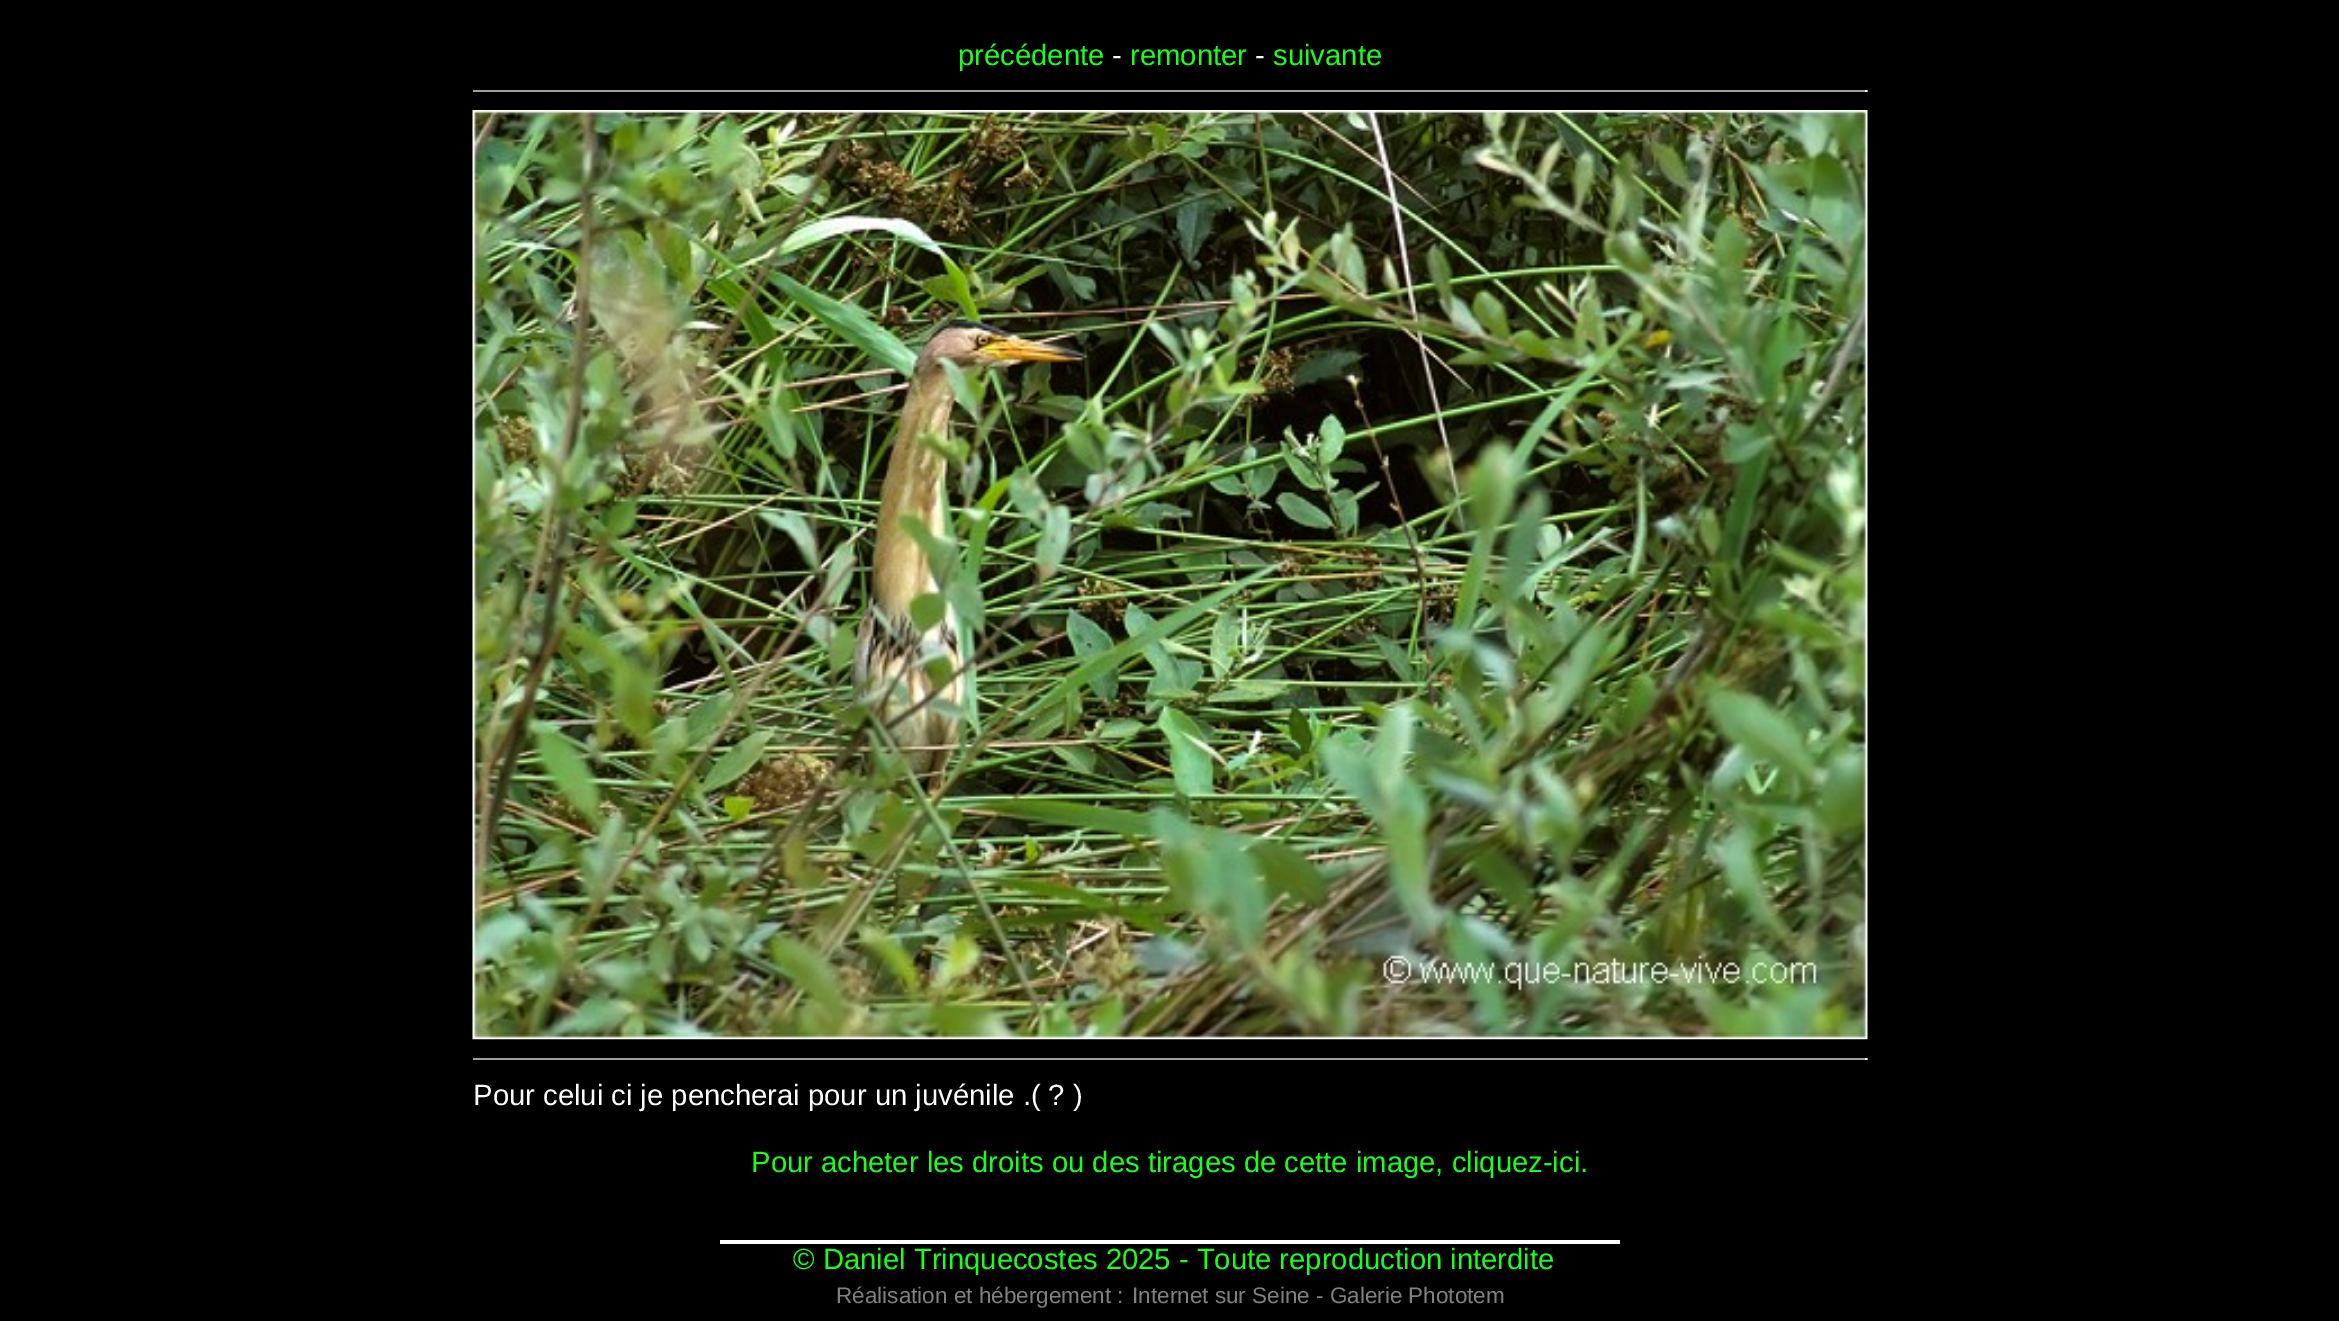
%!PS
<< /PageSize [2339 1321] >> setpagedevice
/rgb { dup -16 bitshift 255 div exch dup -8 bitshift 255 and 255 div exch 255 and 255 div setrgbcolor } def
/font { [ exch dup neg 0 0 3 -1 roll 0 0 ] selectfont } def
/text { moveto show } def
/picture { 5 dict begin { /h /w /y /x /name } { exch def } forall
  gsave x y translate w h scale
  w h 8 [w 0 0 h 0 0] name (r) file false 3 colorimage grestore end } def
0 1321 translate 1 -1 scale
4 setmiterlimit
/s1 { /LiberationSans-Regular 29.25 font 16#1AFF1A rgb } def
/s2 { /LiberationSans-Regular 29.25 font 16#FFFFFF rgb } def
/s3 { /LiberationSans-Regular 22.5 font 16#808080 rgb } def
16#000000 rgb
0 0 2339 1321 rectfill
s1
(précédente) 958 65 text
s2
(-) 1112 65 text
s1
(remonter) 1130 65 text
s2
(-) 1255 65 text
s1
(suivante) 1273 65 text
16#9F9F9F rgb
473 90 1395 2 rectfill
16#EEEEEE rgb
1865 90 2 2 rectfill
(pic1.raw) 472 110 1396 930 picture
16#9F9F9F rgb
473 1058 1395 2 rectfill
16#EEEEEE rgb
1865 1058 2 2 rectfill
s2
(Pour celui ci je pencherai pour un juvénile .\( ? \)) 473 1105 text
s1
(Pour acheter les droits ou des tirages de cette image, cliquez-ici.) 751 1172 text
16#FFFFFF rgb
720 1240 900 4 rectfill
s1
(© Daniel Trinquecostes 2025 - Toute reproduction interdite) 793 1269 text
s3
(Réalisation et hébergement :) 836 1303 text
(Internet sur Seine - Galerie Phototem) 1132 1303 text
showpage
